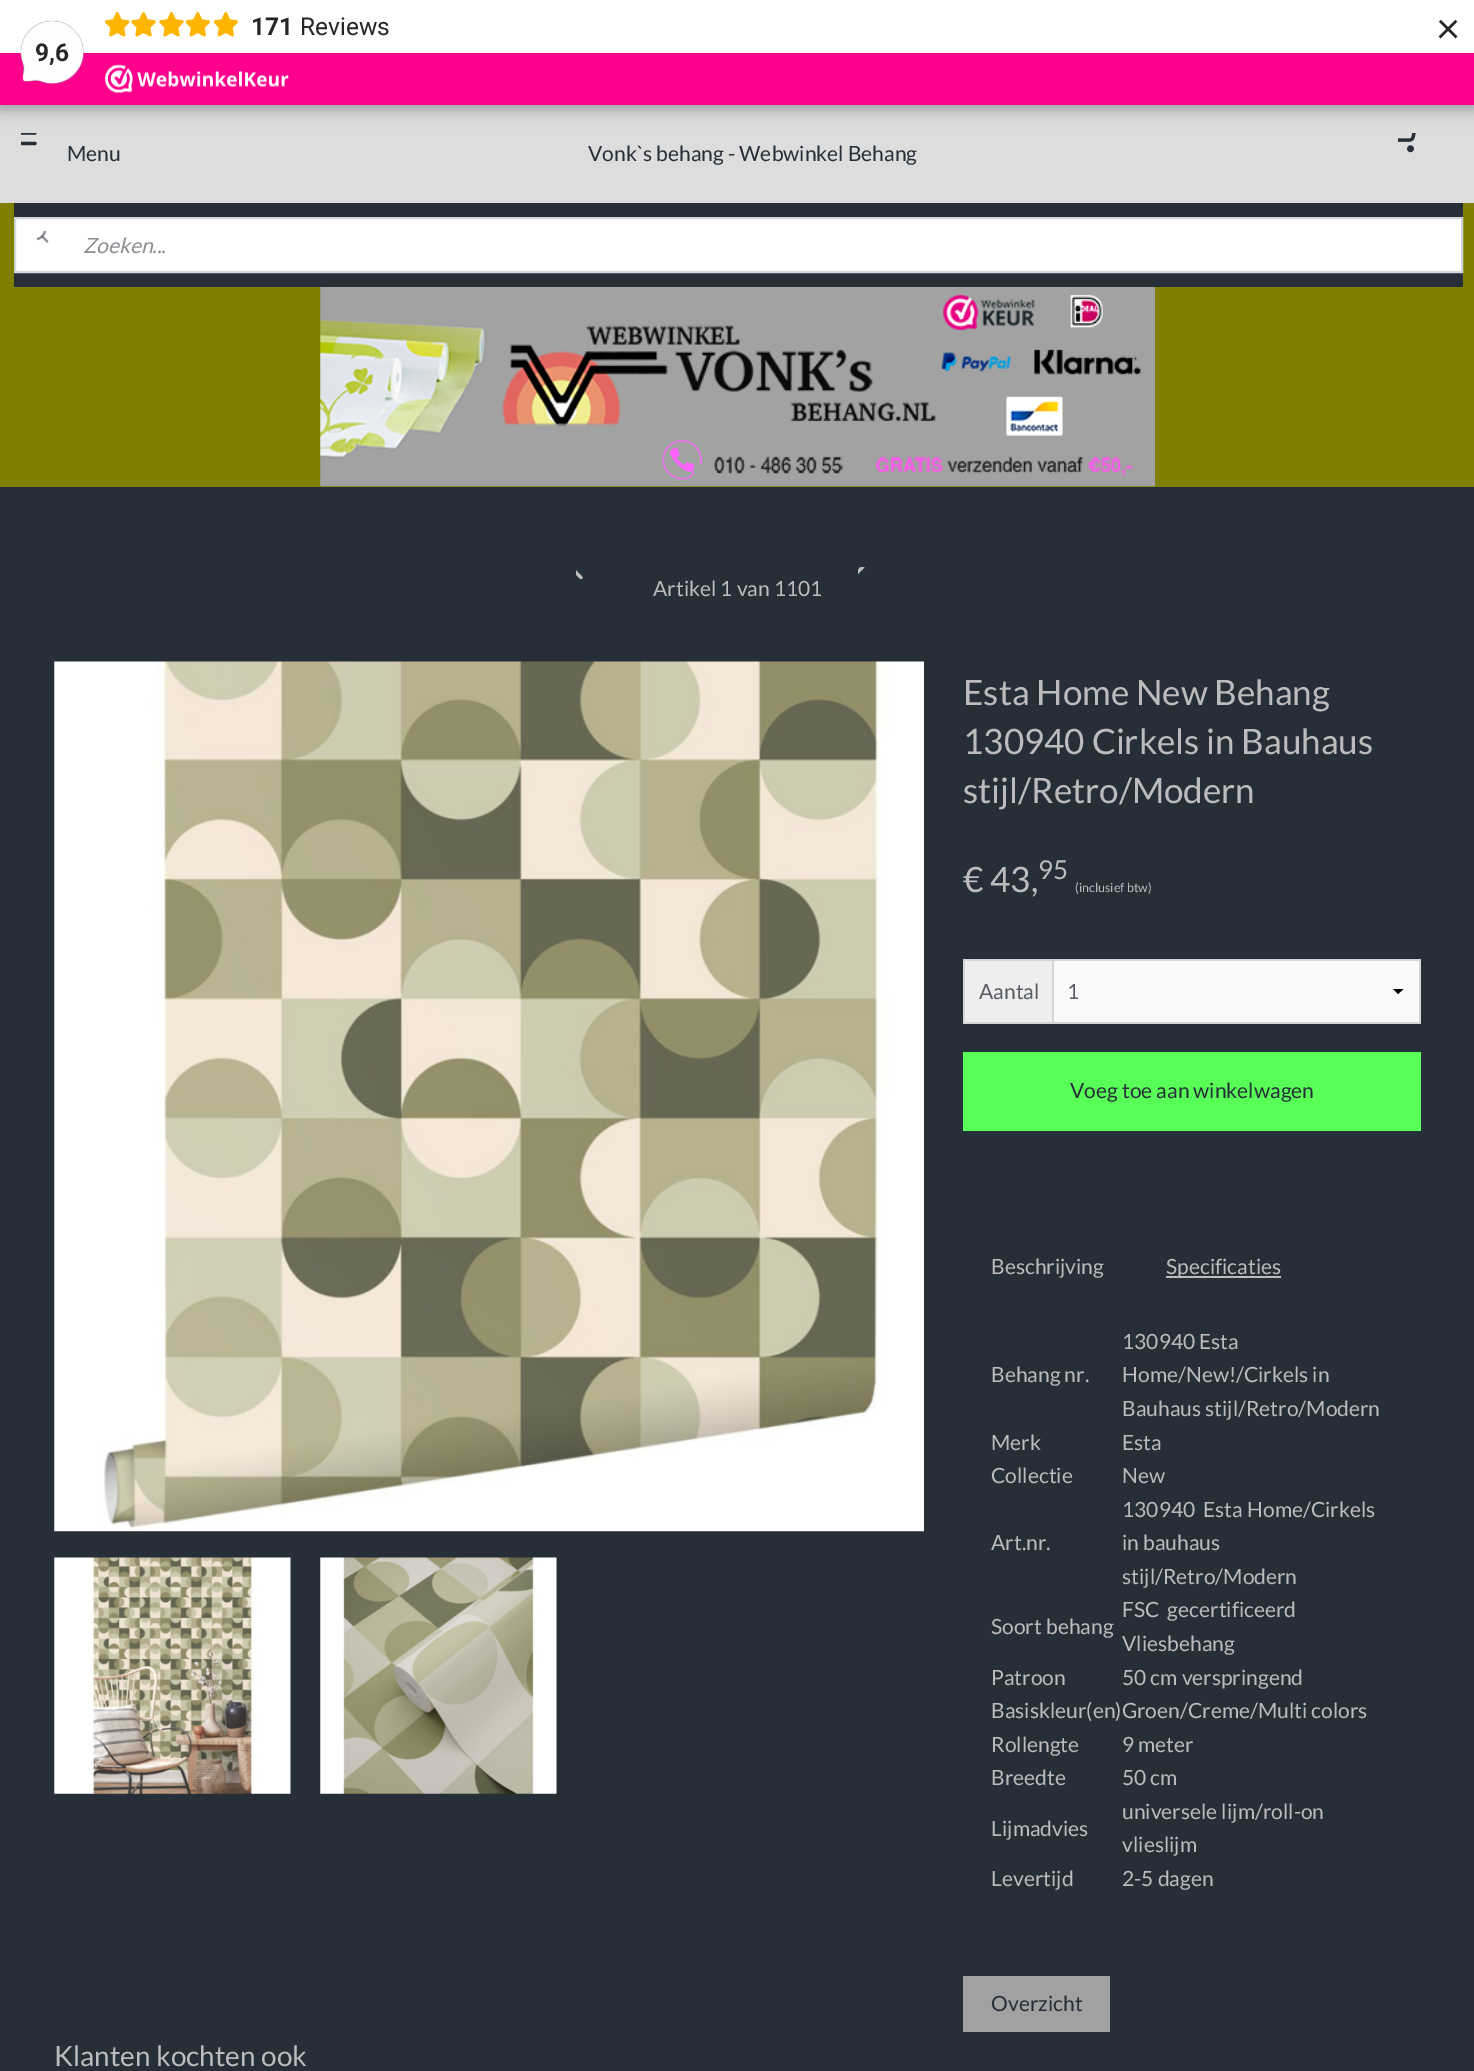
%!PS
<< /PageSize [1474 2071] /PageUsesTransparency true >> setpagedevice
/rgb { dup -16 bitshift 255 div exch dup -8 bitshift 255 and 255 div exch 255 and 255 div setrgbcolor } def
/font { [ exch dup neg 0 0 3 -1 roll 0 0 ] selectfont } def
/text { moveto show } def
/alpha { dup .setfillconstantalpha .setstrokeconstantalpha } def
/roundrect { 5 dict begin { /r /h /w /y /x } { exch def } forall
  x r add y moveto x w add y 2 copy h add r arct x w add y h add x 1 index r arct
  x y h add x y r arct x y 2 copy exch w add exch r arct closepath end } def
/shadow { 12 dict begin { /a /b /q /h /w /y /x } { exch def } forall gsave /was 0 def
  9 -2 -9 { dup b mul 4 div /e exch def 1 sub .425 mul 2.718 exch exp 1 add a .99 .min exch div /now exch def
    1 1 now sub 1 was sub div sub alpha /was now def
    w h .min e 2 mul add 0 gt { x e sub y e sub w e 2 mul add h e 2 mul add
      q e add b .6 mul add w h .min 2 div e add .min 0 .max roundrect fill } if } for grestore end } def
/picture { 5 dict begin { /h /w /y /x /name } { exch def } forall
  gsave x y translate w h scale
  w h 8 [w 0 0 h 0 0] name (r) file false 3 colorimage grestore end } def
0 .pushpdf14devicefilter
0 2071 translate 1 -1 scale
4 setmiterlimit
/s1 { /Roboto-Bold 24.5 font 16#272626 rgb } def
/s2 { /Roboto-Regular 24.5 font 16#272626 rgb } def
/s3 { /Lato-Regular 42 font 16#272626 rgb } def
/s4 { /Lato-Regular 21 font 16#262E38 rgb } def
/s5 { /Lato-Italic 21 font 16#898C91 rgb } def
/s6 { /Lato-Regular 21 font 16#BCBCBC rgb } def
/s7 { /Lato-Regular 35 font 16#BCBCBC rgb } def
/s8 { /Lato-Regular 26 font 16#BCBCBC rgb } def
/s9 { /Lato-Regular 12.5 font 16#BCBCBC rgb } def
/s10 { /Lato-Regular 21 font 16#575B62 rgb } def
/s11 { /Lato-Regular 28 font 16#BCBCBC rgb } def
16#808000 rgb
0 0 1474 2071 rectfill
16#DDDDDD rgb
0 105 1474 98 rectfill
16#000000 rgb
-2 -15 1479 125 0 5 0.15 shadow
(pic6.raw) 21 133 16 13 picture
(pic7.raw) 1398 133 18 20 picture
0 4 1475 105 0 9 0.15 shadow
16#FFFFFF rgb
0 0 1474 53 rectfill
(pic1.raw) 105 12 25 25 picture
(pic2.raw) 131 12 25 25 picture
(pic2.raw) 159 12 25 25 picture
(pic3.raw) 186 12 24 25 picture
(pic3.raw) 214 12 24 25 picture
s1
(171) 251 35 text
s2
(Reviews) 300 35 text
s3
(×) 1436 43 text
16#FE008C rgb
0 53 1474 52 rectfill
(pic4.raw) 20 20 65 65 picture
s1
(9,6) 35 61 text
(pic5.raw) 105 64 184 29 picture
s4
(Menu) 67 161 text
(Vonk`s behang - Webwinkel Behang) 588 161 text
14 203 1449 84 rectfill
16#FFFFFF rgb
15 218 moveto 1462 218 lineto 1462 272 lineto 15 272 lineto closepath gsave fill grestore
16#D3D5D9 rgb
2 setlinewidth
stroke
(pic8.raw) 37 231 12 12 picture
s5
(Zoeken...) 83 253 text
(pic9.raw) 320 287 835 200 picture
16#262E38 rgb
0 487 1474 1584 rectfill
(pic10.raw) 576 570 7 10 picture
(pic11.raw) 858 567 7 8 picture
s6
(Artikel 1 van 1101) 653 596 text
(pic12.raw) 54 661 870 871 picture
(pic13.raw) 54 1557 237 237 picture
(pic14.raw) 320 1557 237 237 picture
s7
(Esta Home New Behang) 963 705 text
(130940 Cirkels in Bauhaus) 963 754 text
(stijl/Retro/Modern) 963 803 text
(€ 43,) 963 892 text
s8
(95) 1038 879 text
s9
(\(inclusief btw\)) 1075 892 text
16#D3D5D9 rgb
1052 959 2 63 rectfill
963 959 458 2 rectfill
1419 959 2 65 rectfill
963 1022 458 2 rectfill
963 959 2 65 rectfill
16#EEEEEE rgb
965 961 87 61 rectfill
s10
(Aantal) 979 999 text
16#FAFAFA rgb
1054 961 365 61 rectfill
16#000000 rgb
1403.5 989 moveto 1398 994 lineto 1393 989 lineto closepath fill
s10
(1) 1067 999 text
16#57FF57 rgb
963 1052 458 79 rectfill
s4
(Voeg toe aan winkelwagen) 1070 1098 text
s6
(Beschrijving) 991 1274 text
1166 1276 115 2 rectfill
(Specificaties) 1166 1274 text
(Behang nr.) 991 1382 text
(130940 Esta) 1122 1349 text
(Home/New!/Cirkels in) 1122 1382 text
(Bauhaus stijl/Retro/Modern) 1122 1416 text
(Merk) 991 1450 text
(Esta) 1122 1450 text
(Collectie) 991 1483 text
(New) 1122 1483 text
(Art.nr.) 991 1550 text
(130940  Esta Home/Cirkels) 1122 1517 text
(in bauhaus) 1122 1550 text
(stijl/Retro/Modern) 1122 1584 text
(Soort behang) 991 1634 text
(FSC  gecertificeerd) 1122 1617 text
(Vliesbehang) 1122 1651 text
(Patroon) 991 1685 text
(50 cm verspringend) 1122 1685 text
(Basiskleur\(en\)Groen/Creme/Multi colors) 991 1718 text
(Rollengte) 991 1752 text
(9 meter) 1122 1752 text
(Breedte) 991 1785 text
(50 cm) 1122 1785 text
(Lijmadvies) 991 1836 text
(universele lijm/roll-on) 1122 1819 text
(vlieslijm) 1122 1852 text
(Levertijd) 991 1886 text
(2-5 dagen) 1122 1886 text
16#A1A1A1 rgb
963 1976 147 56 rectfill
s4
(Overzicht) 991 2011 text
s11
(Klanten kochten ook) 54 2066 text
.poppdf14devicefilter showpage
